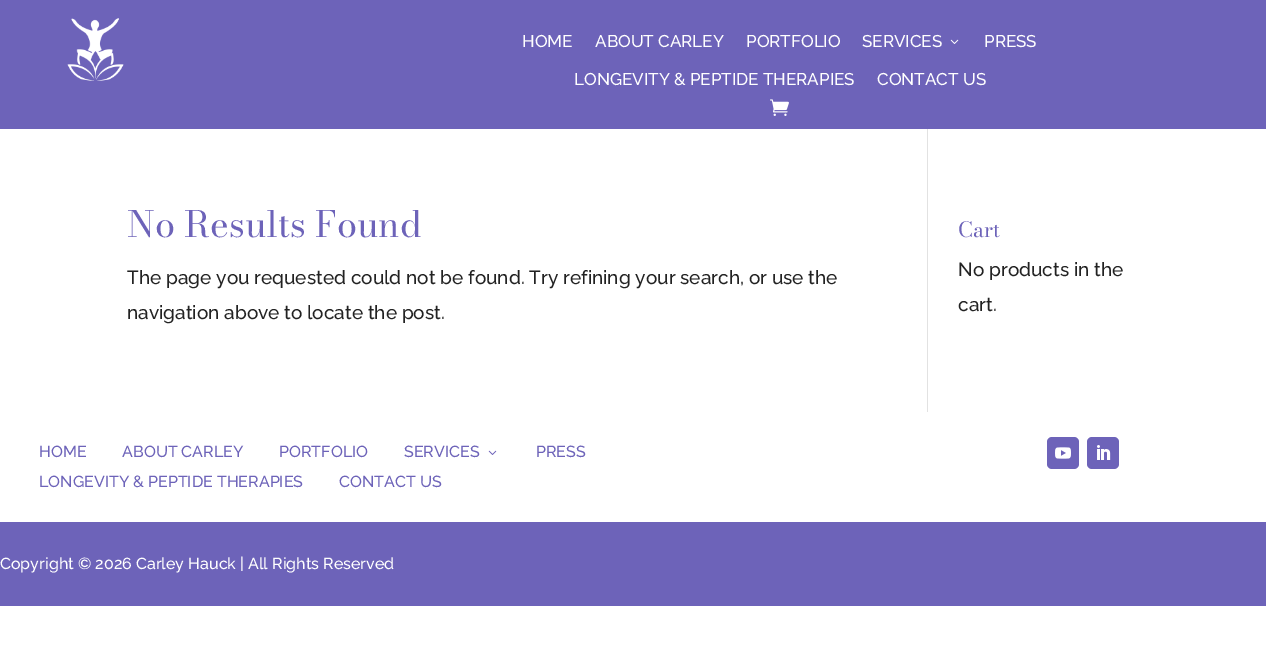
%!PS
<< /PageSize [1266 662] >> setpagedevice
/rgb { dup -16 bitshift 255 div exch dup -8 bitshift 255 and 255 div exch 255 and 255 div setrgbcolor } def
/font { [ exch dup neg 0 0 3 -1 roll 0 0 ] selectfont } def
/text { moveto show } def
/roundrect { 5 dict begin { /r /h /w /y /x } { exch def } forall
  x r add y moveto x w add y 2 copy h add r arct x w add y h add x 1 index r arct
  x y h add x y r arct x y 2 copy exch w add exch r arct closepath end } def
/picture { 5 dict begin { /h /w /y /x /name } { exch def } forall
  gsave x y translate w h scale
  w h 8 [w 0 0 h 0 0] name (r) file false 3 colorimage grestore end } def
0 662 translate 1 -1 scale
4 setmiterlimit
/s1 { /Raleway-Medium 17 font 16#FFFFFF rgb } def
/s2 { /BodoniModa-Regular 36 font 16#6D63B9 rgb } def
/s3 { /Raleway-Medium 19 font 16#222222 rgb } def
/s4 { /BodoniModa-Regular 21 font 16#6D63B9 rgb } def
/s5 { /Raleway-Medium 16 font 16#6D63B9 rgb } def
/s6 { /Raleway-Medium 16 font 16#FFFFFF rgb } def
16#FFFFFF rgb
0 0 1266 662 rectfill
16#6D63B9 rgb
0 0 1266 129 rectfill
(pic1.raw) 67 18 57 63 picture
s1
(HOME) 522 47 text
(ABOUT CARLEY) 595 47 text
(PORTFOLIO) 746 47 text
(SERVICES) 862 47 text
(pic2.raw) 950 39 9 5 picture
(PRESS) 984 47 text
(LONGEVITY & PEPTIDE THERAPIES) 574 85 text
(CONTACT US) 877 85 text
(pic3.raw) 770 99 19 17 picture
16#E2E2E2 rgb
927 129 1 283 rectfill
s2
(No Results Found) 127 237 text
s3
(The page you requested could not be found. Try refining your search, or use the) 127 284 text
(navigation above to locate the post.) 127 319 text
s4
(Cart) 958 237 text
s3
(No products in the) 958 276 text
(cart.) 958 311 text
s5
(HOME) 39 457 text
(ABOUT CARLEY) 122 457 text
(PORTFOLIO) 279 457 text
(SERVICES) 404 457 text
(pic4.raw) 488 450 9 5 picture
(PRESS) 536 457 text
(LONGEVITY & PEPTIDE THERAPIES) 39 487 text
(CONTACT US) 339 487 text
1047 437 32 32 5 roundrect fill
(pic5.raw) 1055 447 16 12 picture
1087 437 32 32 5 roundrect fill
(pic6.raw) 1097 445 14 15 picture
0 522 1266 84 rectfill
s6
(Copyright © 2026 Carley Hauck | All Rights Reserved) 0 569 text
showpage
